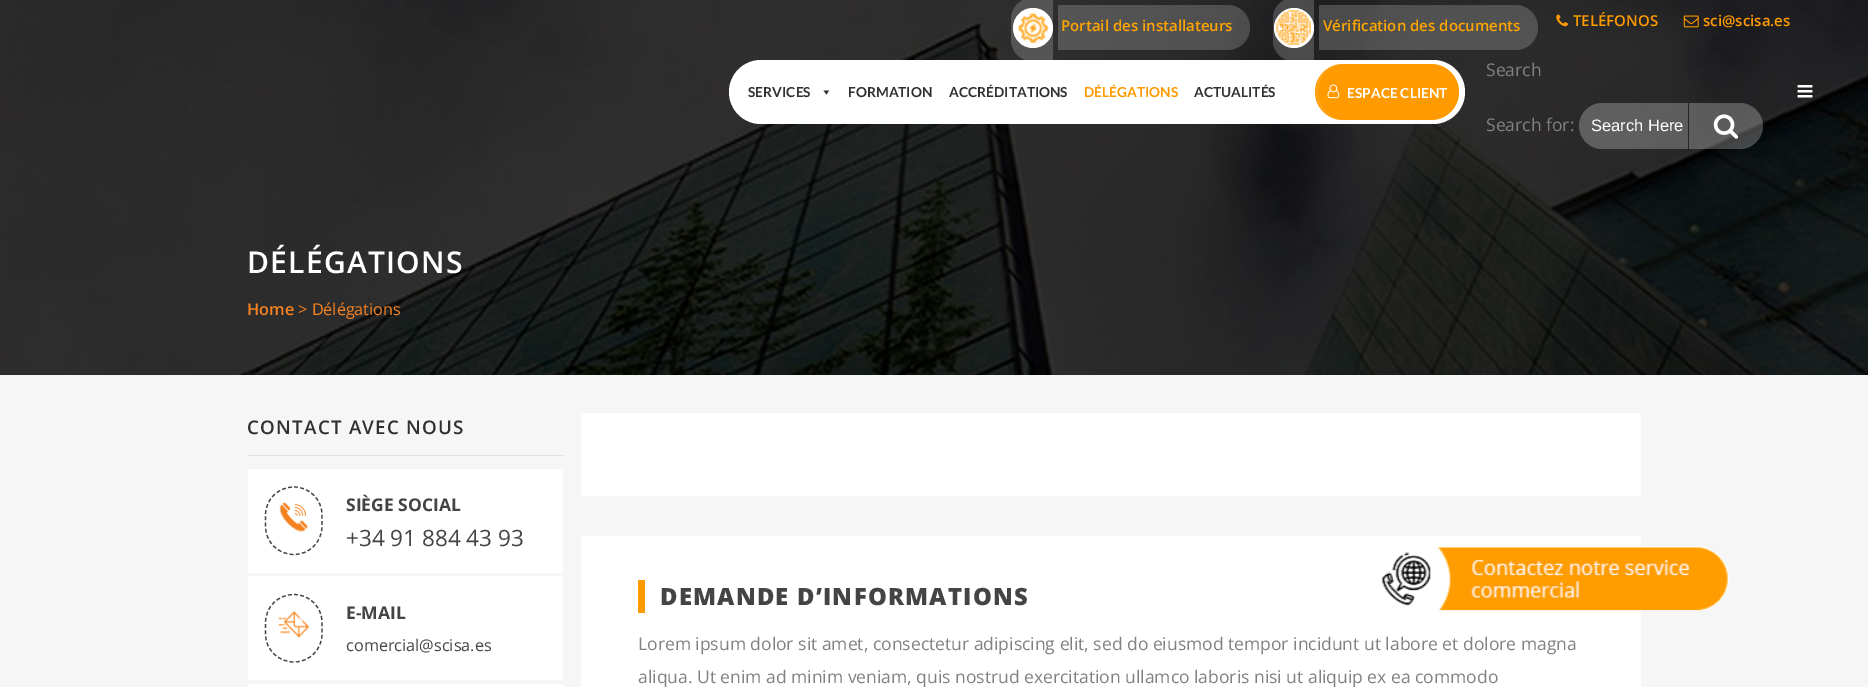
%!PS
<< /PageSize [1868 687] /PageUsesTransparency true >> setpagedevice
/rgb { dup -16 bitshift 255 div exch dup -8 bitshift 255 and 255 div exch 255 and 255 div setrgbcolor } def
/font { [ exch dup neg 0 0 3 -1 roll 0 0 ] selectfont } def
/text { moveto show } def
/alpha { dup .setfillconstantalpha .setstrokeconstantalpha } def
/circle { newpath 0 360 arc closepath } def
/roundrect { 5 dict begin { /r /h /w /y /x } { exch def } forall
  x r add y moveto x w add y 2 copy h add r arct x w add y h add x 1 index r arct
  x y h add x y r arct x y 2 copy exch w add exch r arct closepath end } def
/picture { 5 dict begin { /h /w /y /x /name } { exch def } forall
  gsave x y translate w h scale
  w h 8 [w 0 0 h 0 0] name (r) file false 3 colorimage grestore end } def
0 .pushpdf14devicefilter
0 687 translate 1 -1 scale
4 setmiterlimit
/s1 { /OpenSans-SemiBold 15 font 16#FFA500 rgb } def
/s2 { /OpenSans-SemiBold 15 font 16#FF9A00 rgb } def
/s3 { /Lato-Bold 13.75 font 16#303030 rgb } def
/s4 { /Lato-Bold 13.75 font 16#FF9A00 rgb } def
/s5 { /Lato-Bold 13.75 font 16#FFFFFF rgb } def
/s6 { /OpenSans-Regular 17.5 font 16#818181 rgb } def
/s7 { /LiberationSans-Regular 16.5 font 16#FFFFFF rgb } def
/s8 { /OpenSans-SemiBold 16.25 font 16#F58220 rgb } def
/s9 { /OpenSans-Regular 16.25 font 16#F58220 rgb } def
/s10 { /OpenSans-Bold 17.5 font 16#444444 rgb } def
/s11 { /OpenSans-Regular 22.5 font 16#444444 rgb } def
/s12 { /OpenSans-Regular 16.25 font 16#444444 rgb } def
16#F6F6F6 rgb
0 0 1868 687 rectfill
(pic8.raw) 0 0 1868 375 picture
16#FFFFFF rgb
729 60 736 64 32 roundrect fill
0.19 alpha
1032 -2 moveto 1053 -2 lineto 1053 61 lineto 1032 61 lineto 1020.5 61 1011 51.5 1011 40 curveto 1011 19 lineto 1011 7.5 1020.5 -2 1032 -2 curveto closepath fill
1 alpha
1033 28 20 circle fill
(pic1.raw) 1018 13 31 31 picture
0.19 alpha
1058 5 moveto 1227.5 5 lineto 1240 5 1250 15 1250 27.5 curveto 1250 40 1240 50 1227.5 50 curveto 1058 50 lineto closepath fill
1 alpha
s1
(Portail des installateurs) 1061 31 text
0.19 alpha
16#FFFFFF rgb
1293.5 -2 moveto 1314 -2 lineto 1314 61 lineto 1293.5 61 lineto 1282 61 1273 52 1273 40.5 curveto 1273 18.5 lineto 1273 7 1282 -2 1293.5 -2 curveto closepath fill
1 alpha
1294 28 20 circle fill
(pic2.raw) 1276 10 35 35 picture
0.19 alpha
1319 5 moveto 1515.5 5 lineto 1528 5 1538 15 1538 27.5 curveto 1538 40 1528 50 1515.5 50 curveto 1319 50 lineto closepath fill
1 alpha
s1
(Vérification des documents) 1323 31 text
(pic3.raw) 1556 14 12 13 picture
s2
(TELÉFONOS) 1573 26 text
(pic4.raw) 1683 15 16 13 picture
(sci@scisa.es) 1703 26 text
s3
(SERVICES) 748 97 text
16#333333 rgb
829 90.5 moveto 826.5 94.5 lineto 823.5 90.5 lineto closepath fill
s3
(FORMATION) 848 97 text
(ACCRÉDITATIONS) 949 97 text
s4
(DÉLÉGATIONS) 1084 97 text
s3
(ACTUALITÉS) 1194 97 text
16#FF9A00 rgb
1315 64 144 56 28 roundrect fill
0.1 alpha
16#FFFFFF rgb
1344 64 moveto 1436 64 lineto 1431 64 lineto 1343 64 lineto 1328 64 1316 76 1316 92 curveto 1316 107 1328 120 1343 120 curveto 1344 120 lineto 1330 120 1318 107 1318 92 curveto 1318 76 1330 64 1344 64 curveto closepath fill
1315 78 1 28 rectfill
1 alpha
(pic5.raw) 1327 84 13 15 picture
(ESPACE CLIENT) 1347 98 text
s6
(Search) 1486 76 text
(Search for:) 1486 131 text
0.25 alpha
16#FFFFFF rgb
1602 103 moveto 1688 103 lineto 1688 149 lineto 1602 149 lineto 1589.5 149 1579 138.5 1579 126 curveto 1579 113.5 1589.5 103 1602 103 curveto closepath fill
1 alpha
s7
(Search Here) 1591 131 text
0.25 alpha
1689 103 moveto 1740 103 lineto 1752.5 103 1763 113.5 1763 126 curveto 1763 138.5 1752.5 149 1740 149 curveto 1689 149 lineto closepath fill
1 alpha
(pic6.raw) 1713 114 26 25 picture
(pic7.raw) 1797 85 16 13 picture
/OpenSans-SemiBold 30 font
247 273 moveto 1.25 0 (DÉLÉGATIONS) ashow
s8
(Home) 247 315 text
s9
(> Délégations) 298 315 text
/OpenSans-SemiBold 18.75 font
16#303030 rgb
247 434 moveto 1.25 0 (CONTACT AVEC NOUS) ashow
16#DFDFDF rgb
248 455 315 1 rectfill
16#FFFFFF rgb
248 469 315 104 rectfill
16#444444 rgb
1.2 setlinewidth
[3.75 2.5] 0 setdash
294 487 moveto 309.5 487 322 499.5 322 515 curveto 322 526 lineto 322 542 309.5 554.5 294 554.5 curveto 278 554.5 265.5 542 265.5 526 curveto 265.5 515 lineto 265.5 499.5 278 487 294 487 curveto closepath stroke
(pic9.raw) 279 502 29 30 picture
s10
(SIÈGE SOCIAL) 346 511 text
s11
(+34 91 884 43 93) 346 546 text
16#FFFFFF rgb
248 576 315 104 rectfill
16#444444 rgb
294 594.5 moveto 309.5 594.5 322 607 322 622.5 curveto 322 634 lineto 322 649.5 309.5 662 294 662 curveto 278 662 265.5 649.5 265.5 634 curveto 265.5 622.5 lineto 265.5 607 278 594.5 294 594.5 curveto closepath stroke
(pic10.raw) 278 611 31 27 picture
s10
(E-MAIL) 346 619 text
s12
(comercial@scisa.es) 346 651 text
16#FFFFFF rgb
248 684 315 3 rectfill
581 413 1060 83 rectfill
581 536 1060 151 rectfill
16#FF9A00 rgb
638 580 7 33 rectfill
/OpenSans-ExtraBold 23.75 font
16#444444 rgb
660 605 moveto 1.25 0 (DEMANDE D’INFORMATIONS) ashow
s6
(Lorem ipsum dolor sit amet, consectetur adipiscing elit, sed do eiusmod tempor incidunt ut labore et dolore magna) 638 650 text
(aliqua. Ut enim ad minim veniam, quis nostrud exercitation ullamco laboris nisi ut aliquip ex ea commodo) 638 683 text
(pic11.raw) 1381 546 348 65 picture
.poppdf14devicefilter showpage
